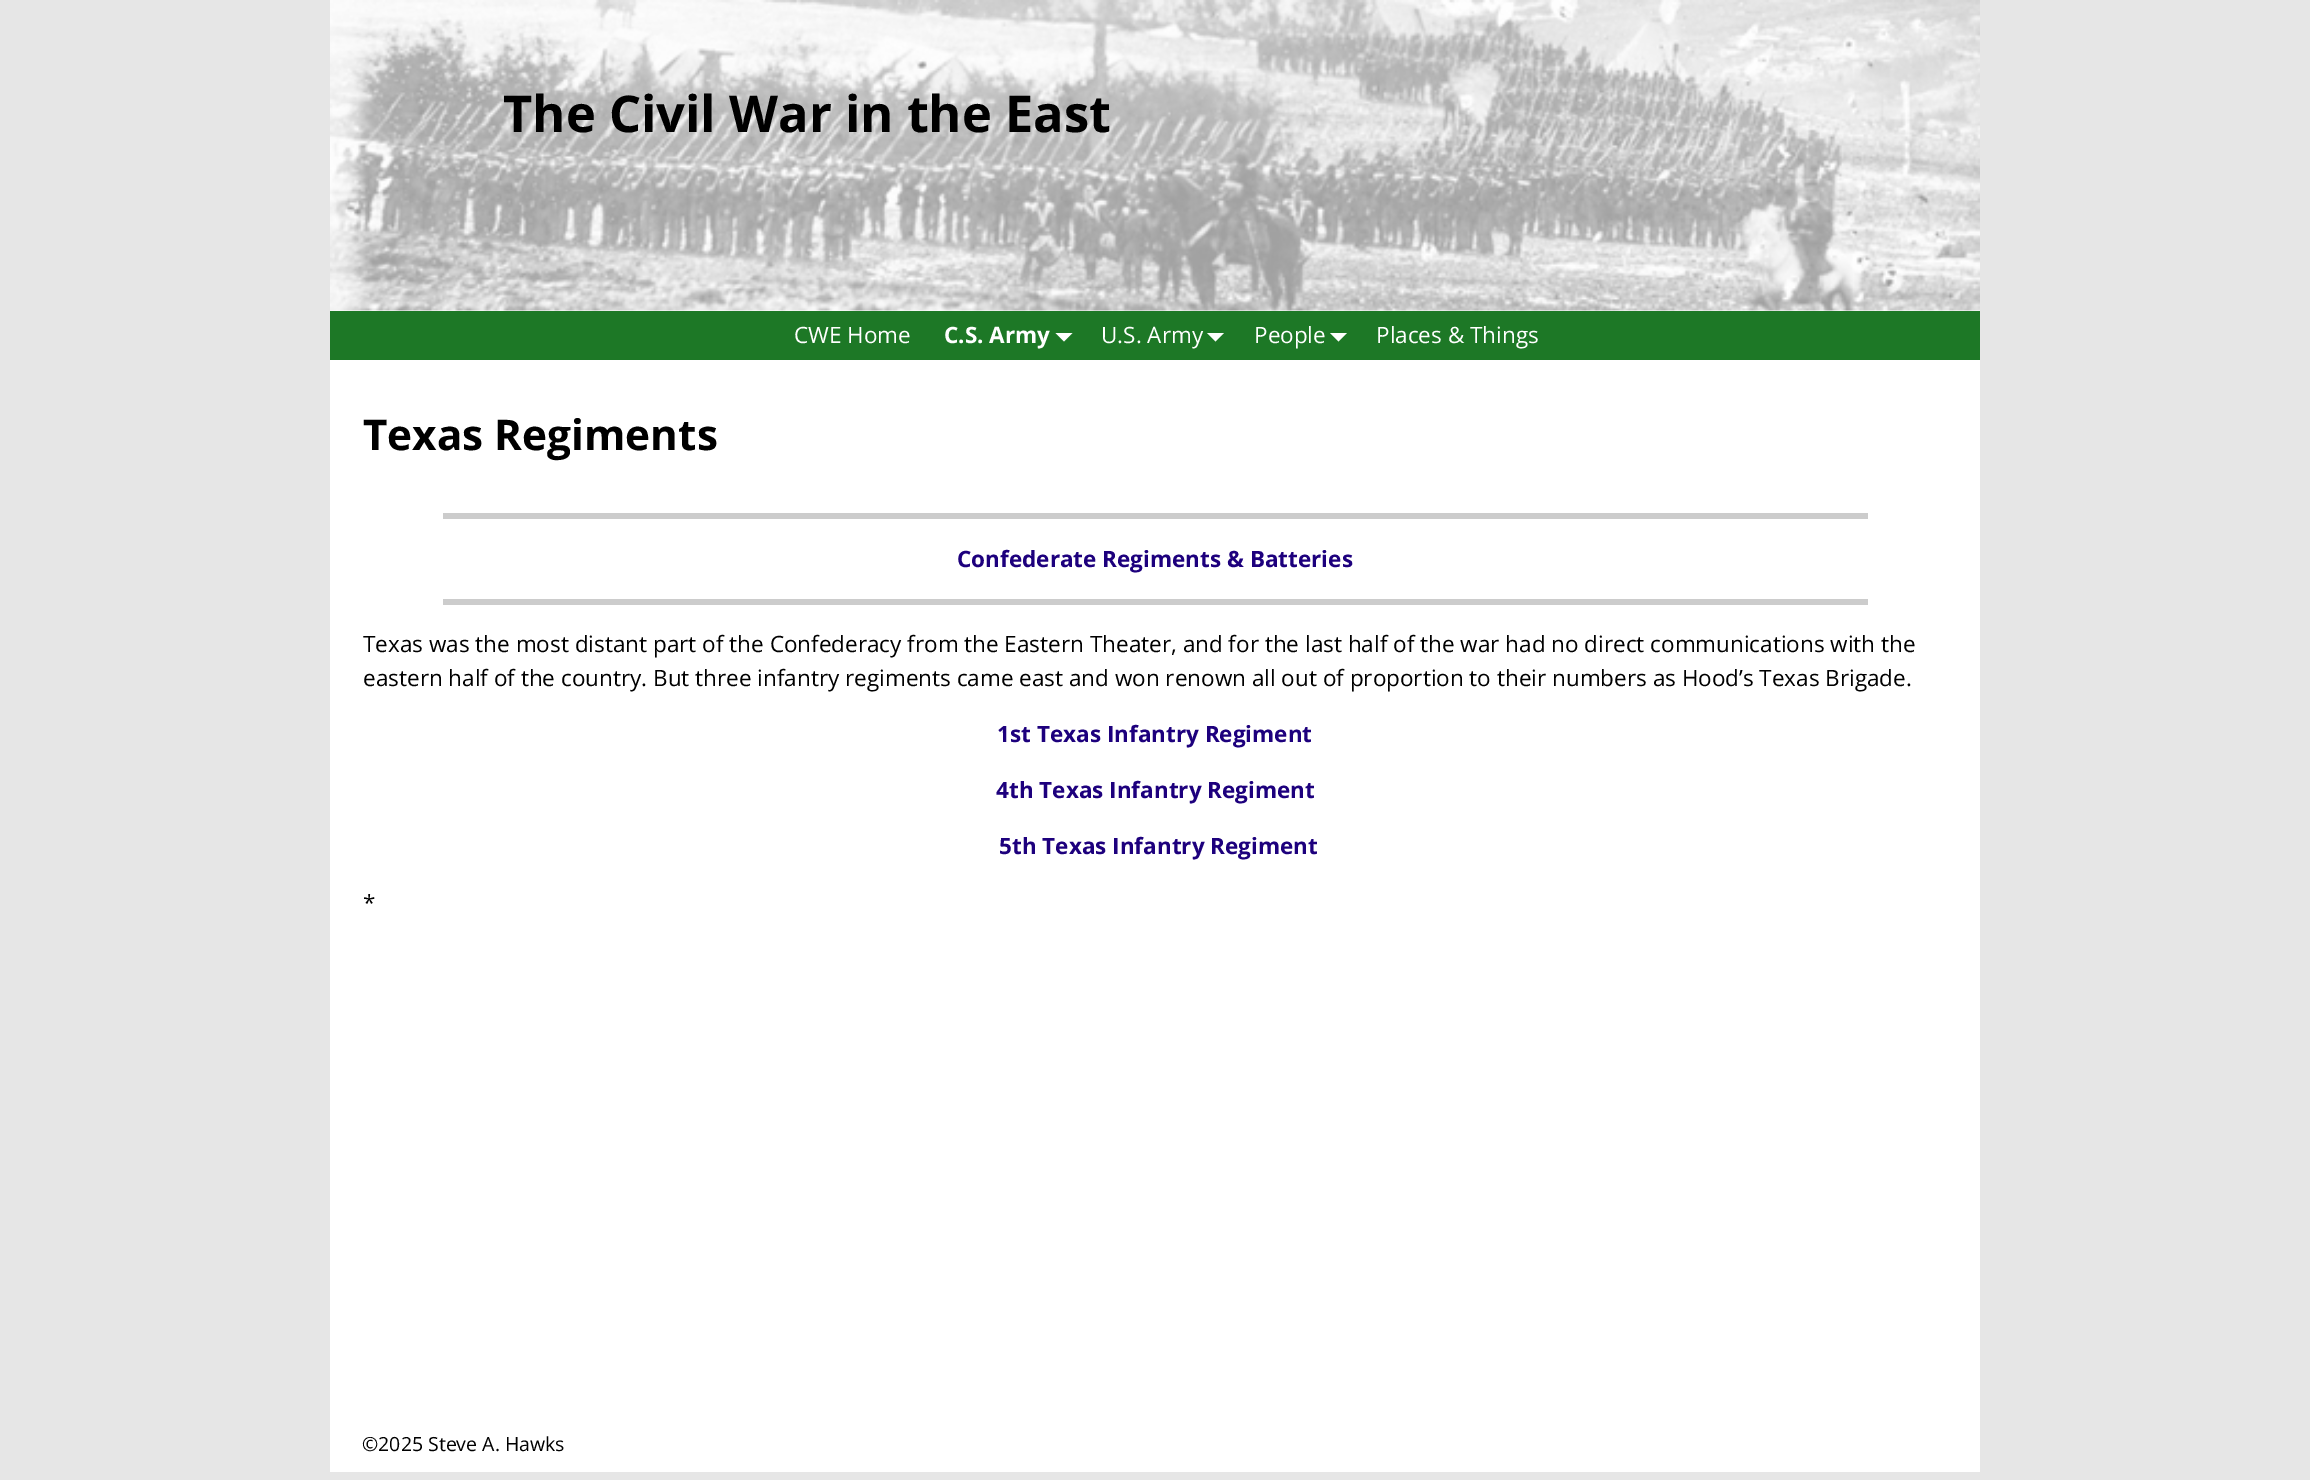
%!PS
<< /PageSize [2310 1480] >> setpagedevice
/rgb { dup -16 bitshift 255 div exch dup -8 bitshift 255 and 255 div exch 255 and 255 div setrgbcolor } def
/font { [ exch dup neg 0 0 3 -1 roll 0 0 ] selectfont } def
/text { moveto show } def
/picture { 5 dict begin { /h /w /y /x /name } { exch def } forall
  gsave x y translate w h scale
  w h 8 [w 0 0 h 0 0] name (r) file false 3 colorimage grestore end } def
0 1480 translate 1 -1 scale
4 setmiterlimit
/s1 { /OpenSans-Bold 50.6 font 16#000000 rgb } def
/s2 { /OpenSans-Regular 22.5 font 16#FFFFFF rgb } def
/s3 { /OpenSans-Bold 22.5 font 16#FFFFFF rgb } def
/s4 { /OpenSans-Bold 42.25 font 16#000000 rgb } def
/s5 { /OpenSans-Bold 22.5 font 16#1D007D rgb } def
/s6 { /OpenSans-Regular 22.5 font 16#000000 rgb } def
/s7 { /OpenSans-Regular 19.5 font 16#000000 rgb } def
16#E6E6E6 rgb
0 0 2310 1480 rectfill
16#FFFFFF rgb
330 310 1650 1162 rectfill
(pic1.raw) 330 0 1650 311 picture
s1
(The Civil War in the East) 503 132 text
16#1D7826 rgb
330 311 1650 49 rectfill
s2
(CWE Home) 794 343 text
s3
(C.S. Army) 944 343 text
1055.5 333 moveto 1072.5 333 lineto 1064 341.5 lineto closepath fill
s2
(U.S. Army) 1101 343 text
1207 333 moveto 1224 333 lineto 1215.5 341.5 lineto closepath fill
(People) 1254 343 text
1330 333 moveto 1347 333 lineto 1338.5 341.5 lineto closepath fill
(Places & Things) 1376 343 text
s4
(Texas Regiments) 363 450 text
16#CCCCCC rgb
443 513 1425 6 rectfill
s5
(Confederate Regiments & Batteries) 957 567 text
16#CCCCCC rgb
443 599 1425 6 rectfill
s6
(Texas was the most distant part of the Confederacy from the Eastern Theater, and for the last half of the war had no direct communications with the) 363 652 text
(eastern half of the country. But three infantry regiments came east and won renown all out of proportion to their numbers as Hood’s Texas Brigade.) 363 686 text
s5
(1st Texas Infantry Regiment) 997 742 text
(4th Texas Infantry Regiment) 996 798 text
(5th Texas Infantry Regiment) 999 854 text
s6
(*) 363 911 text
s7
(©2025 Steve A. Hawks) 362 1451 text
showpage
